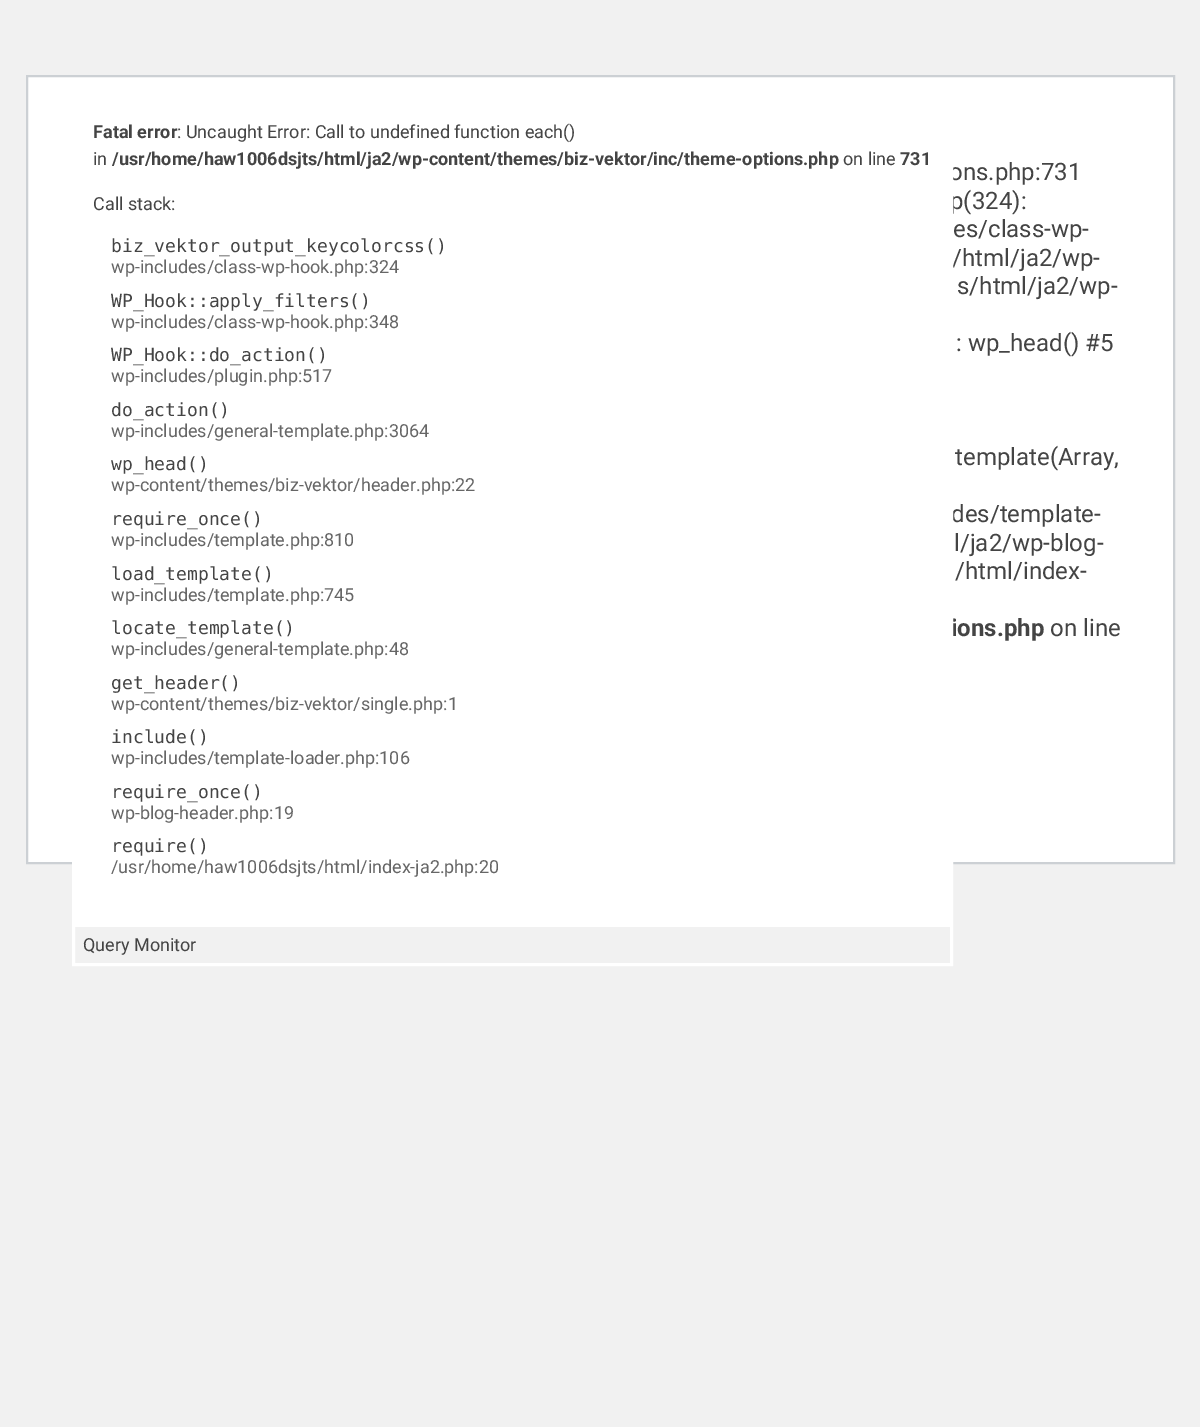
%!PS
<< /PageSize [1200 1427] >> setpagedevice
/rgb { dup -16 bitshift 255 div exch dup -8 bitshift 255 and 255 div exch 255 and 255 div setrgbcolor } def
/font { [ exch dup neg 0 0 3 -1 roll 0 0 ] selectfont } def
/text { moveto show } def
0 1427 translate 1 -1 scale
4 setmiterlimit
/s1 { /Roboto-Regular 24 font 16#444444 rgb } def
/s2 { /Roboto-Bold 24 font 16#444444 rgb } def
/s3 { /Roboto-Bold 18 font 16#444444 rgb } def
/s4 { /Roboto-Regular 18 font 16#444444 rgb } def
/s5 { /DejaVuSansMono-Regular 18 font 16#444444 rgb } def
/s6 { /Roboto-Regular 18 font 16#666666 rgb } def
16#F1F1F1 rgb
0 0 1200 1427 rectfill
16#FFFFFF rgb
27 76 moveto 1174 76 lineto 1174 863 lineto 27 863 lineto closepath gsave fill grestore
16#CCD0D4 rgb
2 setlinewidth
stroke
s1
(ons.php:731) 949 180 text
(p\(324\):) 950 209 text
(/html/ja2/wp-) 952 266 text
(des/template-) 951 522 text
s2
(ions.php) 951 636 text
16#FFFFFF rgb
3 setlinewidth
73.5 99.5 878 865 rectstroke
75 173 875 754 rectfill
s3
(Fatal error) 93 138 text
s4
(: Uncaught Error: Call to undefined function each\(\)) 177 138 text
(in) 93 165 text
s3
(/usr/home/haw1006dsjts/html/ja2/wp-content/themes/biz-vektor/inc/theme-options.php) 112 165 text
s4
(on line) 843 165 text
s3
(731) 900 165 text
s4
(Call stack:) 93 210 text
s5
(biz_vektor_output_keycolorcss\(\)) 111 252 text
s6
(wp-includes/class-wp-hook.php:324) 111 273 text
s5
(WP_Hook::apply_filters\(\)) 111 307 text
s6
(wp-includes/class-wp-hook.php:348) 111 328 text
s5
(WP_Hook::do_action\(\)) 111 361 text
s6
(wp-includes/plugin.php:517) 111 382 text
s5
(do_action\(\)) 111 416 text
s6
(wp-includes/general-template.php:3064) 111 437 text
s5
(wp_head\(\)) 111 470 text
s6
(wp-content/themes/biz-vektor/header.php:22) 111 491 text
s5
(require_once\(\)) 111 525 text
s6
(wp-includes/template.php:810) 111 546 text
s5
(load_template\(\)) 111 580 text
s6
(wp-includes/template.php:745) 111 601 text
s5
(locate_template\(\)) 111 634 text
s6
(wp-includes/general-template.php:48) 111 655 text
s5
(get_header\(\)) 111 689 text
s6
(wp-content/themes/biz-vektor/single.php:1) 111 710 text
s5
(include\(\)) 111 743 text
s6
(wp-includes/template-loader.php:106) 111 764 text
s5
(require_once\(\)) 111 798 text
s6
(wp-blog-header.php:19) 111 819 text
s5
(require\(\)) 111 852 text
s6
(/usr/home/haw1006dsjts/html/index-ja2.php:20) 111 873 text
s4
(Query Monitor) 83 951 text
s1
(es/class-wp-) 953 237 text
(s/html/ja2/wp-) 957 294 text
(: wp_head\(\) #5) 956 351 text
(template\(Array,) 955 465 text
(l/ja2/wp-blog-) 954 551 text
(/html/index-) 955 579 text
(on line) 1050 636 text
showpage
